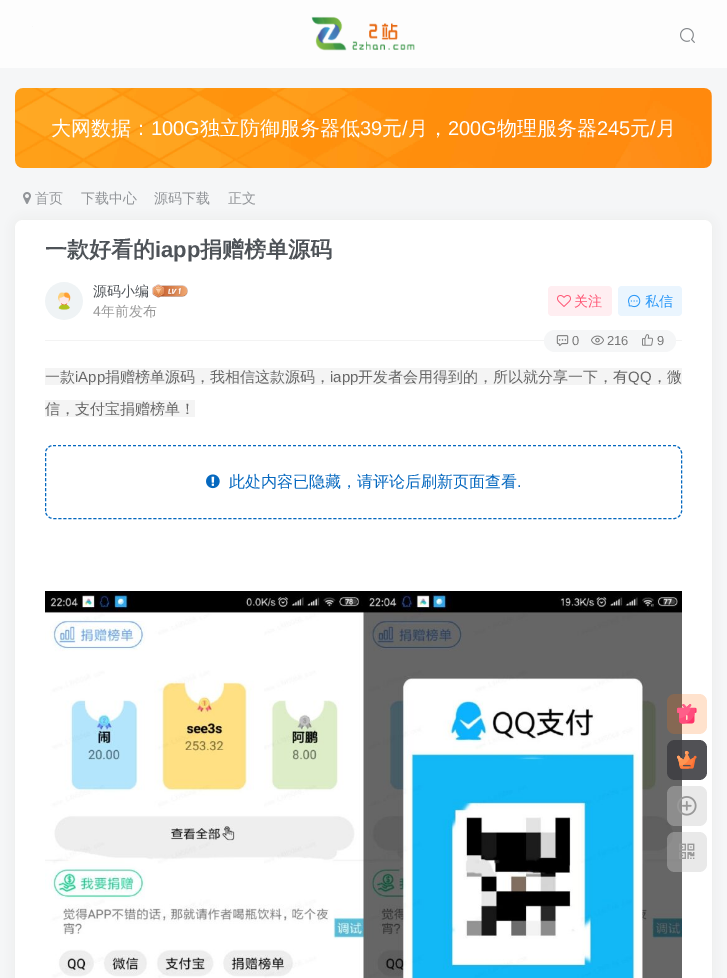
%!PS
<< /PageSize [727 978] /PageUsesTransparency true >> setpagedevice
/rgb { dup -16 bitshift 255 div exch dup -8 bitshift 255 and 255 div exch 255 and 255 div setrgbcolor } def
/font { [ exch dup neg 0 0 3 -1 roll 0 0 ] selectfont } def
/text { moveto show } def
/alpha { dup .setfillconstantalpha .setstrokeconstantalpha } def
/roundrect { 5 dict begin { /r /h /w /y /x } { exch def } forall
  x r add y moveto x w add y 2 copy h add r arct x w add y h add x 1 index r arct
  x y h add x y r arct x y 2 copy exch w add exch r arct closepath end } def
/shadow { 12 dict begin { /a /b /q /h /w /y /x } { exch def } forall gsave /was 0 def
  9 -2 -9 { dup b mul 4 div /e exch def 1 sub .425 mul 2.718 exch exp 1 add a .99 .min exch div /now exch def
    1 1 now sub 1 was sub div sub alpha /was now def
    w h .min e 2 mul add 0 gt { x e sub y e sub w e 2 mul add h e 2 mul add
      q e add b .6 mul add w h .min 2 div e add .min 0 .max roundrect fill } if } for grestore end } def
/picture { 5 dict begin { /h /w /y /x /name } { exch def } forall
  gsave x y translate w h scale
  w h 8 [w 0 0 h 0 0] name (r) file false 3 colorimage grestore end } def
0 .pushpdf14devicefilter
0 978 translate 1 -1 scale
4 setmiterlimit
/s1 { /WenQuanYiZenHei-Medium 20 font 16#FFFFFF rgb } def
/s2 { /LiberationSans-Regular 20 font 16#FFFFFF rgb } def
/s3 { /WenQuanYiZenHei-Medium 14 font 16#919498 rgb } def
/s4 { /WenQuanYiZenHei-Bold 22 font 16#4E5358 rgb } def
/s5 { /LiberationSans-Bold 22 font 16#4E5358 rgb } def
/s6 { /WenQuanYiZenHei-Medium 14 font 16#4E5358 rgb } def
/s7 { /LiberationSans-Regular 14 font 16#999999 rgb } def
/s8 { /WenQuanYiZenHei-Medium 14 font 16#999999 rgb } def
/s9 { /WenQuanYiZenHei-Medium 14 font 16#FF5473 rgb } def
/s10 { /WenQuanYiZenHei-Medium 14 font 16#2997F7 rgb } def
/s11 { /LiberationSans-Regular 13 font 16#777777 rgb } def
/s12 { /WenQuanYiZenHei-Medium 15 font 16#666666 rgb } def
/s13 { /LiberationSans-Regular 15 font 16#666666 rgb } def
/s14 { /WenQuanYiZenHei-Medium 16 font 16#0568BF rgb } def
/s15 { /LiberationSans-Regular 16 font 16#0568BF rgb } def
16#F5F6F7 rgb
0 0 727 978 rectfill
16#FDFDFD rgb
0 0 727 68 rectfill
16#F8F8F8 rgb
32 26 1 1 rectfill
(pic1.raw) 311 16 104 35 picture
(pic2.raw) 680 28 15 15 picture
(pic3.raw) 15 88 697 80 picture
s1
(大网数据：) 51 135 text
s2
(100G) 151 135 text
s1
(独立防御服务器低) 200 135 text
s2
(39) 360 135 text
s1
(元) 382 135 text
s2
(/) 402 135 text
s1
(月，) 408 135 text
s2
(200G) 448 135 text
s1
(物理服务器) 497 135 text
s2
(245) 597 135 text
s1
(元) 630 135 text
s2
(/) 650 135 text
s1
(月) 656 135 text
(pic4.raw) 23 192 8 12 picture
16#747474 rgb
15 220 697 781 8 5 0.08 shadow
s3
(首页) 35 203 text
(下载中心) 81 203 text
(源码下载) 154 203 text
(正文) 228 203 text
16#FFFFFF rgb
15 220 697 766 8 roundrect fill
s4
(一款好看的) 45 257 text
s5
(iapp) 155 257 text
s4
(捐赠榜单源码) 200 257 text
(pic5.raw) 45 282 38 38 picture
s6
(源码小编) 93 296 text
(pic6.raw) 152 284 36 14 picture
s7
(4) 93 316 text
s8
(年前发布) 101 316 text
16#FFEEF1 rgb
548 286 64 30 4 roundrect fill
(pic7.raw) 557 295 14 12 picture
s9
(关注) 574 306 text
16#EAF5FE rgb
618 286 64 30 4 roundrect fill
(pic8.raw) 628 294 13 14 picture
s10
(私信) 645 306 text
16#F3F3F3 rgb
45 340 637 1 rectfill
16#F5F6F7 rgb
544 330 132 22 11 roundrect fill
(pic9.raw) 556 335 13 11 picture
s11
(0) 572 345 text
(pic10.raw) 591 335 13 10 picture
(216) 607 345 text
(pic11.raw) 642 334 11 12 picture
(9) 657 345 text
16#F4F4F4 rgb
45 368 637 17 rectfill
s12
(一款) 45 382 text
s13
(iApp) 75 382 text
s12
(捐赠榜单源码，我相信这款源码，) 105 382 text
s13
(iapp) 330 382 text
s12
(开发者会用得到的，所以就分享一下，有) 358 382 text
s13
(QQ) 628 382 text
s12
(，微) 652 382 text
16#F4F4F4 rgb
45 400 150 17 rectfill
s12
(信，支付宝捐赠榜单！) 45 414 text
16#0568BF rgb
[3 2] 0 setdash
53 445.5 moveto 674 445.5 lineto 678 445.5 681.5 449 681.5 453 curveto 681.5 511 lineto 681.5 515 678 518.5 674 518.5 curveto 53 518.5 lineto 49 518.5 45.5 515 45.5 511 curveto 45.5 453 lineto 45.5 449 49 445.5 53 445.5 curveto closepath stroke
(pic12.raw) 206 474 14 15 picture
s14
(此处内容已隐藏，请评论后刷新页面查看) 229 487 text
s15
(.) 517 487 text
(pic13.raw) 45 591 637 387 picture
0.2 alpha
16#FF6F06 rgb
667 694 40 40 8 roundrect fill
1 alpha
(pic14.raw) 677 704 20 20 picture
0.9 alpha
16#3E3E43 rgb
667 740 40 40 8 roundrect fill
1 alpha
(pic15.raw) 677 751 20 18 picture
0.4 alpha
16#C8C8C8 rgb
667 786 40 40 8 roundrect fill
1 alpha
(pic16.raw) 677 796 20 20 picture
0.4 alpha
667 832 40 40 8 roundrect fill
1 alpha
(pic17.raw) 679 843 16 16 picture
.poppdf14devicefilter showpage
